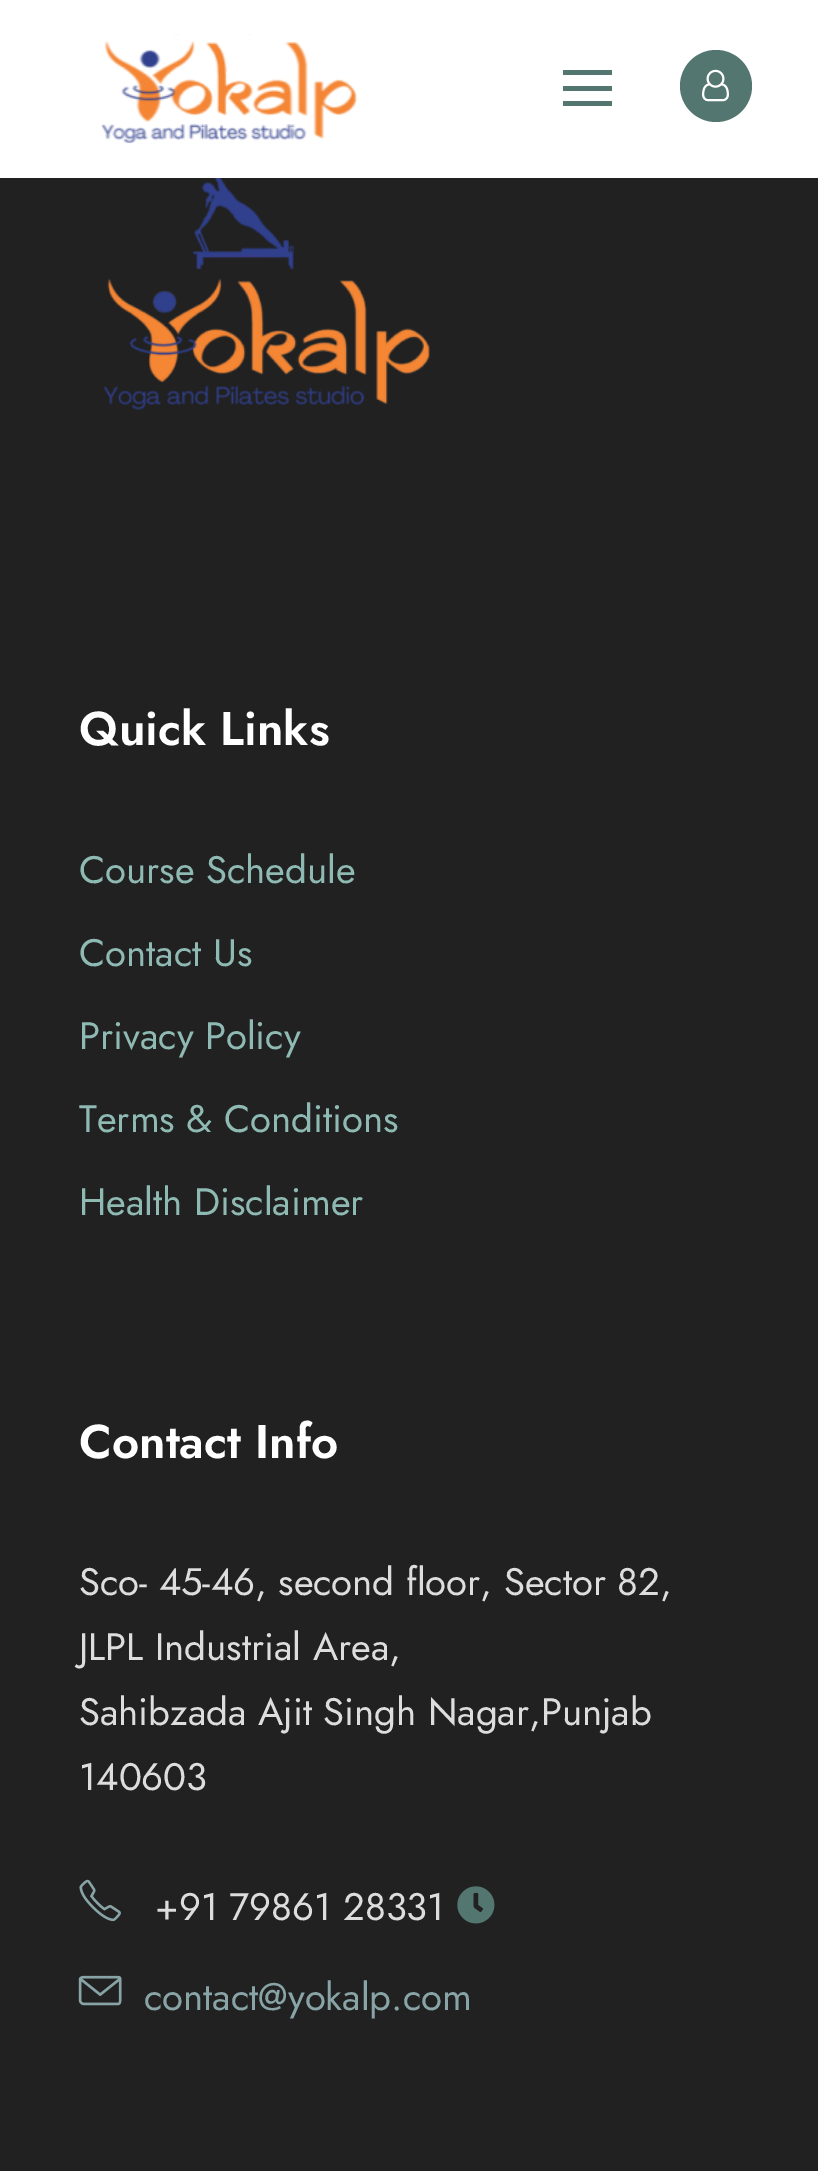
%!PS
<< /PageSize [818 2171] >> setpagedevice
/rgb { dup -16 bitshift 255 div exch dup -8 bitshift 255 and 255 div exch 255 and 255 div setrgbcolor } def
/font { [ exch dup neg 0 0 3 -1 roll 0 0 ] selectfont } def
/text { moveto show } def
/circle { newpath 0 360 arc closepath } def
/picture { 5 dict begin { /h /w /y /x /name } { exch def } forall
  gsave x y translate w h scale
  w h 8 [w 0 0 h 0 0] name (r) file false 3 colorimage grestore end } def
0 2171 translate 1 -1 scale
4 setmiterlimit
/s1 { /Jost-SemiBold 47.25 font 16#FFFFFF rgb } def
/s2 { /Jost-Regular 38.25 font 16#8FBAB3 rgb } def
/s3 { /Jost-Regular 38.25 font 16#DDDDDD rgb } def
/s4 { /Jost-Regular 38.25 font 16#88A4A7 rgb } def
16#212121 rgb
0 0 818 2171 rectfill
16#FFFFFF rgb
0 0 818 178 rectfill
(pic1.raw) 101 34 257 110 picture
16#547670 rgb
563 70 49 5 rectfill
563 86 49 5 rectfill
563 101 49 5 rectfill
716 86 36 circle fill
(pic2.raw) 702 69 27 33 picture
(pic3.raw) 103 178 327 232 picture
s1
(Quick Links) 79 745 text
s2
(Course Schedule) 79 883 text
(Contact Us) 79 966 text
(Privacy Policy) 79 1049 text
(Terms & Conditions) 79 1132 text
(Health Disclaimer) 79 1215 text
s1
(Contact Info) 79 1458 text
s3
(Sco- 45-46, second floor, Sector 82,) 79 1595 text
(JLPL Industrial Area,) 79 1660 text
(Sahibzada Ajit Singh Nagar,Punjab) 79 1725 text
(140603) 79 1790 text
(pic4.raw) 79 1879 42 43 picture
(+91 79861 28331) 155 1920 text
(pic5.raw) 457 1886 38 38 picture
(pic6.raw) 78 1975 44 31 picture
s4
(contact@yokalp.com) 144 2010 text
showpage
